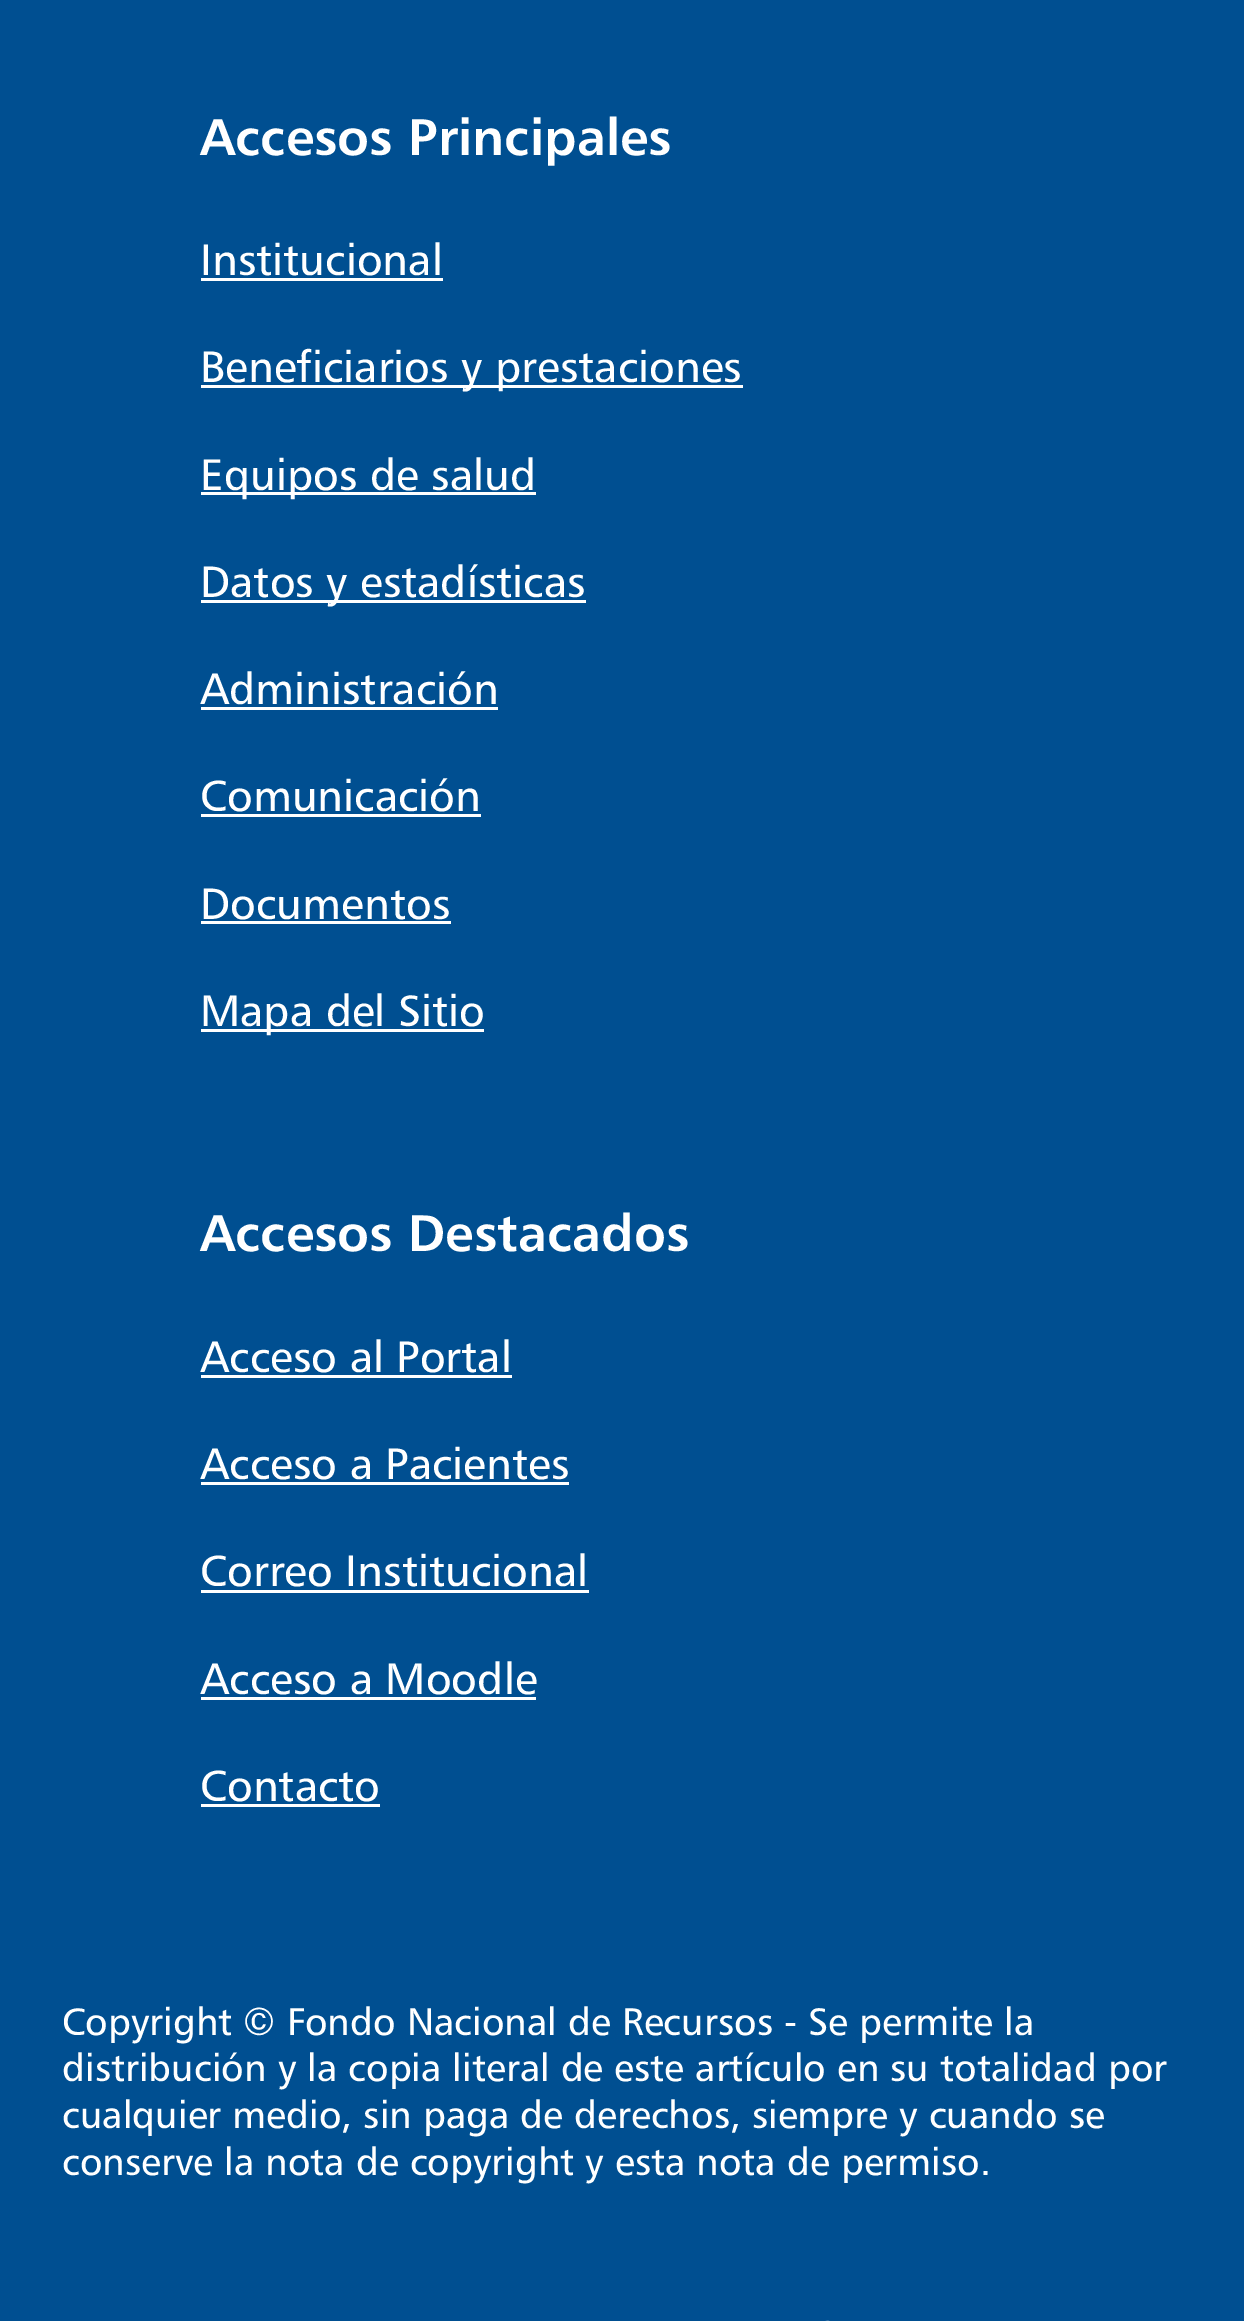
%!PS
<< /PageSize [1244 2321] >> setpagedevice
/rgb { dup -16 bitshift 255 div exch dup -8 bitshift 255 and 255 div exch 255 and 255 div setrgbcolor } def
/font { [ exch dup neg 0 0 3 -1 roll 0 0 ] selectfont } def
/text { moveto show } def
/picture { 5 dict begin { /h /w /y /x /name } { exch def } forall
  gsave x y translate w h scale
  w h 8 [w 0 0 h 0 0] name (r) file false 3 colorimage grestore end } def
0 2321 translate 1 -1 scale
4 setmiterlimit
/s1 { /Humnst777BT-Bold 51.5 font 16#FFFFFF rgb } def
/s2 { /Humnst777BT-Regular 44 font 16#FFFFFF rgb } def
/s3 { /Humnst777BT-Regular 38.5 font 16#FFFFFF rgb } def
16#004F91 rgb
0 0 1244 2321 rectfill
s1
(Accesos Principales) 200 155 text
s2
(Institucional) 200 275 text
201 278 242 3 rectfill
201 385 542 3 rectfill
(Beneficiarios y prestaciones) 200 382 text
201 492 335 3 rectfill
(Equipos de salud) 200 490 text
201 600 385 3 rectfill
(Datos y estadísticas) 200 597 text
(Administración) 200 704 text
201 707 297 3 rectfill
(Comunicación) 200 811 text
201 814 280 3 rectfill
(Documentos) 200 919 text
201 921 250 3 rectfill
201 1029 283 3 rectfill
(Mapa del Sitio) 200 1026 text
s1
(Accesos Destacados) 200 1251 text
s2
(Acceso al Portal) 200 1372 text
201 1375 311 3 rectfill
(Acceso a Pacientes) 200 1479 text
201 1482 368 3 rectfill
(Correo Institucional) 200 1586 text
201 1590 388 3 rectfill
(Acceso a Moodle) 200 1694 text
201 1697 335 3 rectfill
(Contacto) 200 1801 text
201 1804 179 3 rectfill
s3
(Copyright © Fondo Nacional de Recursos - Se permite la) 62 2035 text
(distribución y la copia literal de este artículo en su totalidad por) 62 2081 text
(cualquier medio, sin paga de derechos, siempre y cuando se) 62 2128 text
(conserve la nota de copyright y esta nota de permiso.) 62 2175 text
(pic1.raw) 825 2320 5 1 picture
showpage
